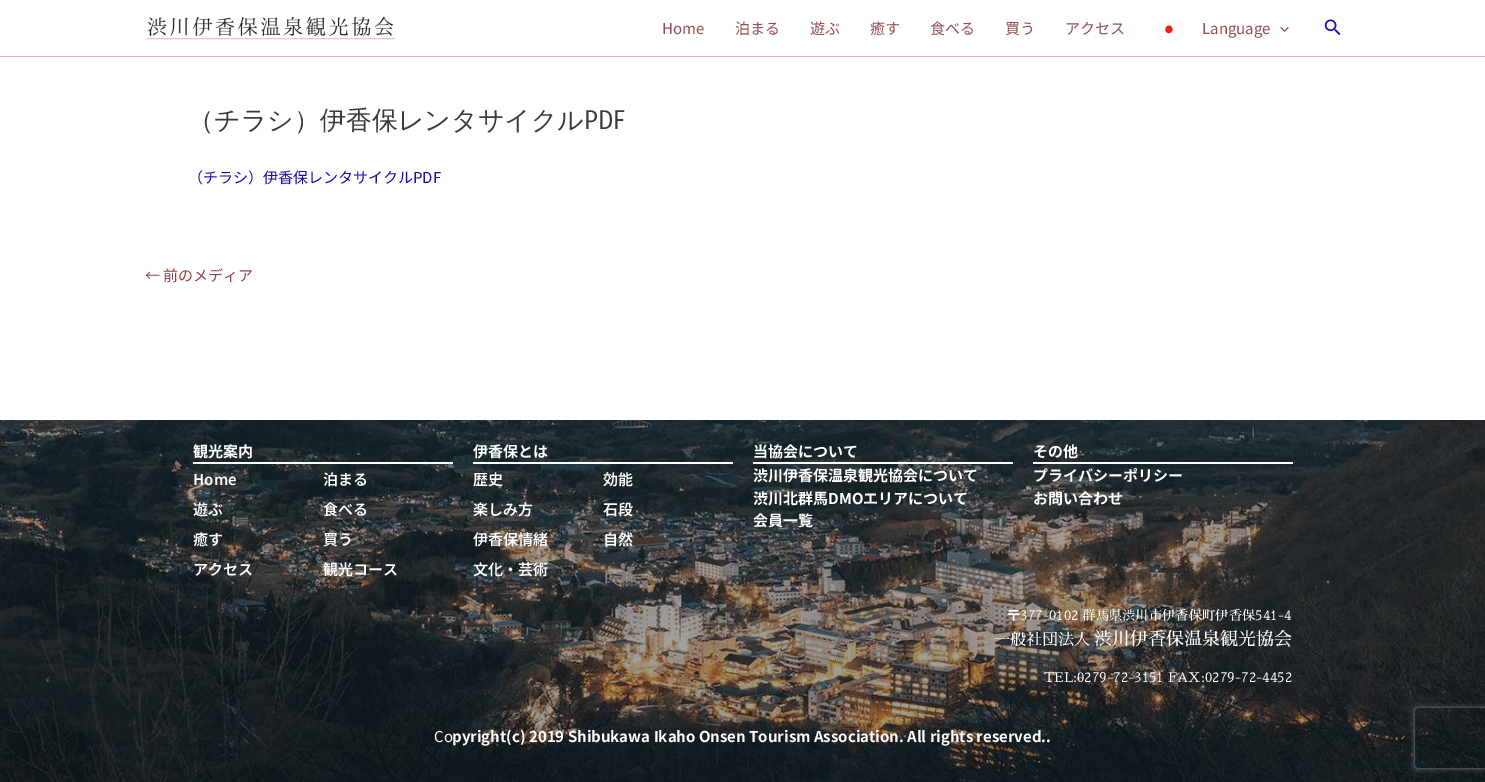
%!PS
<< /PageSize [1485 782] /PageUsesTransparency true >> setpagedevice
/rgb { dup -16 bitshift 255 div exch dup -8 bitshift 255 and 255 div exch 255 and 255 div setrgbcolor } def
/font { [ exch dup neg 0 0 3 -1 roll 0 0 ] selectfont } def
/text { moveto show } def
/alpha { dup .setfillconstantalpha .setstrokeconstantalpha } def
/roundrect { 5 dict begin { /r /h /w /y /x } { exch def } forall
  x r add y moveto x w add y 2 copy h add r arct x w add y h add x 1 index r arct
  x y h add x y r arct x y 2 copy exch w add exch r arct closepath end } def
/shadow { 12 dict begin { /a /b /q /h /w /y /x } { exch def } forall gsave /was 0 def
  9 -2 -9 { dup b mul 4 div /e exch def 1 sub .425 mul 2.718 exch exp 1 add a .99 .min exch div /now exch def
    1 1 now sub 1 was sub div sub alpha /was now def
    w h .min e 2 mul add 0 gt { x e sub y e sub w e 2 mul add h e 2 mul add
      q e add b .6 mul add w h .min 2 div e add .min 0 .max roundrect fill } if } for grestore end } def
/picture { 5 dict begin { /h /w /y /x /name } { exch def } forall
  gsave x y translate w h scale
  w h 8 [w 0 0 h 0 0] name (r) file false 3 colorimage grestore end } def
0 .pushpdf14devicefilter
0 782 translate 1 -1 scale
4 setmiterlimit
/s1 { /NotoSansJP-Regular 15 font 16#934D4D rgb } def
/s2 { /WenQuanYiZenHei-Medium 26 font 16#3A3A3A rgb } def
/s3 { /CarroisGothic-Regular 26 font 16#3A3A3A rgb } def
/s4 { /NotoSansJP-Regular 15 font 16#1A0DAB rgb } def
/s5 { /NotoSansJP-Regular 15 font 16#913F43 rgb } def
/s6 { /NotoSansJP-Bold 15 font 16#FFFFFF rgb } def
/s7 { /NotoSansJP-SemiBold 15 font 16#FFFFFF rgb } def
/s8 { /SawarabiMincho-Regular 13.3 font 16#FFFFFF rgb } def
/s9 { /SawarabiMincho-Regular 16 font 16#FFFFFF rgb } def
/s10 { /SawarabiMincho-Regular 18 font 16#FFFFFF rgb } def
/s11 { /NotoSansJP-Regular 15 font 16#FFFFFF rgb } def
16#FFFFFF rgb
0 0 1485 782 rectfill
16#FF9FB5 rgb
0 56 1485 1 rectfill
(pic1.raw) 146 16 250 24 picture
s1
(Home) 662 34 text
(泊まる) 735 34 text
(遊ぶ) 810 34 text
(癒す) 870 34 text
(食べる) 930 34 text
(買う) 1005 34 text
(アクセス) 1065 34 text
(pic2.raw) 1158 22 22 15 picture
(Language) 1202 34 text
(pic3.raw) 1280 27 9 5 picture
(pic4.raw) 1324 19 17 17 picture
s2
(（チラシ）伊香保レンタサイクル) 188 129 text
s3
(PDF) 584 129 text
s4
(（チラシ）伊香保レンタサイクルPDF) 188 183 text
s5
(← 前のメディア) 145 281 text
(pic5.raw) 0 420 1485 362 picture
16#FFFFFF rgb
193 462 260 2 rectfill
s6
(観光案内) 193 457 text
s7
(Home) 193 485 text
(遊ぶ) 193 515 text
(癒す) 193 545 text
(アクセス) 193 575 text
(泊まる) 323 485 text
(食べる) 323 515 text
(買う) 323 545 text
(観光コース) 323 575 text
473 462 260 2 rectfill
s6
(伊香保とは) 473 457 text
s7
(歴史) 473 485 text
(楽しみ方) 473 515 text
(伊香保情緒) 473 545 text
(文化・芸術) 473 575 text
(効能) 603 485 text
(石段) 603 515 text
(自然) 603 545 text
753 462 260 2 rectfill
s6
(当協会について) 753 457 text
(渋川伊香保温泉観光協会について) 753 481 text
(渋川北群馬DMOエリアについて) 753 504 text
(会員一覧) 753 526 text
1033 462 260 2 rectfill
(その他) 1033 457 text
(プライバシーポリシー) 1033 481 text
(お問い合わせ) 1033 504 text
s8
(〒377-0102 群馬県渋川市伊香保町伊香保541-4) 1007 620 text
s9
(一般社団法人) 994 645 text
s10
(渋川伊香保温泉観光協会) 1094 645 text
s8
(TEL:0279-72-3151 FAX:0279-72-4452) 1044 682 text
s11
(Co) 434 742 text
s6
(pyright\(c\) 2019 Shibukawa Ikaho Onsen Tourism Association. All rights reserved..) 452 742 text
gsave
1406 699 moveto 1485 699 lineto 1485 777 lineto 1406 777 lineto closepath 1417 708 moveto 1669 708 lineto 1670 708 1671 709 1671 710 curveto 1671 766 lineto 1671 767 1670 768 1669 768 curveto 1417 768 lineto 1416 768 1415 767 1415 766 curveto 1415 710 lineto 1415 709 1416 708 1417 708 curveto closepath eoclip newpath
16#808080 rgb
1415 708 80 60 2 2.5 1 shadow
grestore
.poppdf14devicefilter showpage
